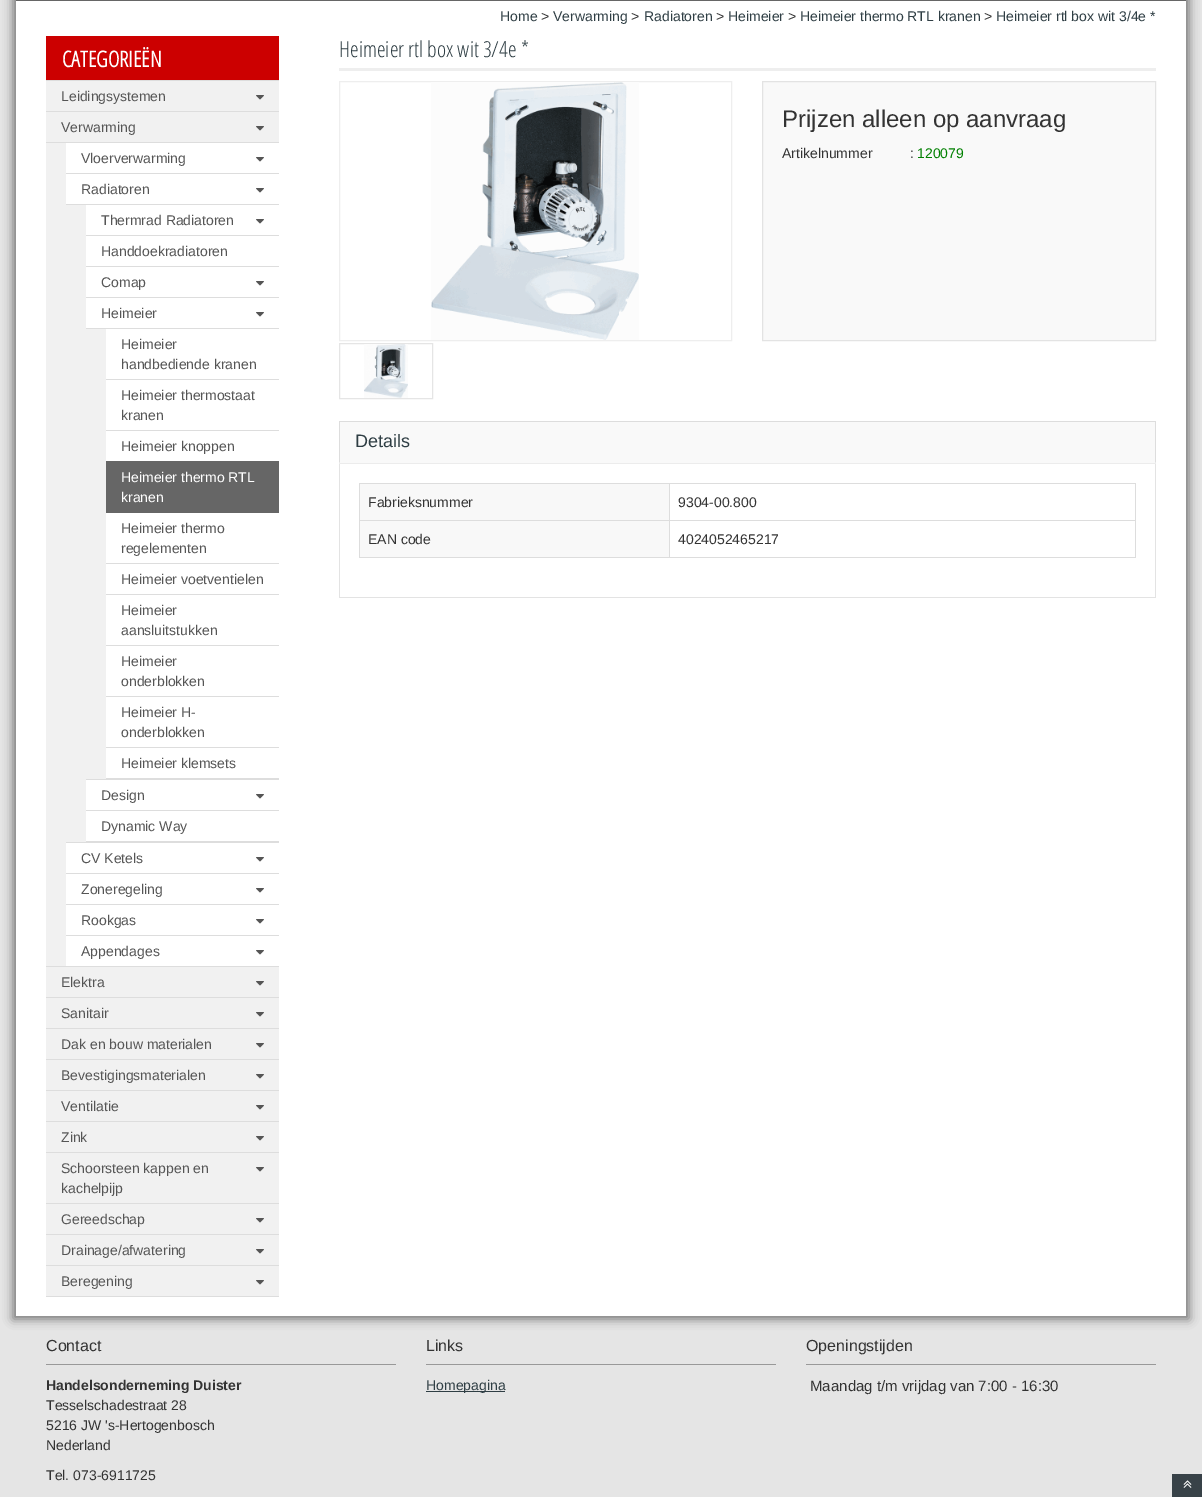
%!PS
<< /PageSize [1202 1497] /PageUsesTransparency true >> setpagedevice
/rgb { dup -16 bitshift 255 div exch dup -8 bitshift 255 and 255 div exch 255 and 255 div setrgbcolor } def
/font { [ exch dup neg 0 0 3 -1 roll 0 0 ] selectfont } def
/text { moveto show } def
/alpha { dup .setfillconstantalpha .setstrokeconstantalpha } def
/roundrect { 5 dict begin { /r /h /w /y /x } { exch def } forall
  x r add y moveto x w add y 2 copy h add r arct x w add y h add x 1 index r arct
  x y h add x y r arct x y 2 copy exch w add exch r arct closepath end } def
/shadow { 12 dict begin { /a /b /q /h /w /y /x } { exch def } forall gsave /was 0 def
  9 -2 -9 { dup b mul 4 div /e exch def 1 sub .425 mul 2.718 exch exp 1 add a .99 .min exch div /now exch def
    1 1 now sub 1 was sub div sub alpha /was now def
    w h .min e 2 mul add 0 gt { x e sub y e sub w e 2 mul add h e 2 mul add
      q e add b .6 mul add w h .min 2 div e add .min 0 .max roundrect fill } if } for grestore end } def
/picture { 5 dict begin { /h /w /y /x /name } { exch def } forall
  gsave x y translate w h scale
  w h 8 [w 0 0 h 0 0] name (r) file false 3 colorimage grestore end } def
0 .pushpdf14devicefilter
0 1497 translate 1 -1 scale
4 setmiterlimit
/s1 { /LiberationSans-Regular 14 font 16#2F3E44 rgb } def
/s2 { /LiberationSans-Regular 14 font 16#333333 rgb } def
/s3 { /OpenSansCondensed-Bold 22 font 16#FFFFFF rgb } def
/s4 { /LiberationSans-Regular 14 font 16#555555 rgb } def
/s5 { /LiberationSans-Regular 14 font 16#FFFFFF rgb } def
/s6 { /OpenSansCondensed-Light 22 font 16#2F3E44 rgb } def
/s7 { /LiberationSans-Regular 24 font 16#333333 rgb } def
/s8 { /LiberationSans-Regular 14 font 16#008000 rgb } def
/s9 { /LiberationSans-Regular 18 font 16#2F3E44 rgb } def
/s10 { /LiberationSans-Regular 16 font 16#333333 rgb } def
/s11 { /LiberationSans-Bold 14 font 16#333333 rgb } def
/s12 { /LiberationSans-Regular 15 font 16#333333 rgb } def
16#E5E5E5 rgb
0 0 1202 1497 rectfill
16#000000 rgb
13 -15 1176 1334 0 5 0.5 shadow
16#FFFFFF rgb
16 1 1170 1315 rectfill
16#666666 rgb
16 0 1170 1 rectfill
s1
(Home) 500 21 text
s2
(>) 541 21 text
s1
(Verwarming) 553 21 text
s2
(>) 631 21 text
s1
(Radiatoren) 644 21 text
s2
(>) 716 21 text
s1
(Heimeier) 728 21 text
s2
(>) 788 21 text
s1
(Heimeier thermo RTL kranen) 800 21 text
s2
(>) 984 21 text
s1
(Heimeier rtl box wit 3/4e *) 996 21 text
16#CC0000 rgb
46 36 233 44 rectfill
s3
(CATEGORIEËN) 62 67 text
16#F1F1F1 rgb
46 81 233 885 rectfill
16#DDDDDD rgb
46 80 233 1 rectfill
s4
(Leidingsystemen) 61 101 text
(pic1.raw) 256 95 8 5 picture
16#DDDDDD rgb
46 111 233 1 rectfill
46 142 233 1 rectfill
s4
(Verwarming) 61 132 text
(pic1.raw) 256 126 8 5 picture
16#FFFFFF rgb
66 143 213 30 rectfill
s4
(Vloerverwarming) 81 163 text
(pic2.raw) 256 157 8 5 picture
16#FFFFFF rgb
66 174 213 30 rectfill
16#DDDDDD rgb
66 173 213 1 rectfill
66 204 213 1 rectfill
s4
(Radiatoren) 81 194 text
(pic2.raw) 256 188 8 5 picture
16#FFFFFF rgb
86 205 193 30 rectfill
s4
(Thermrad Radiatoren) 101 225 text
(pic2.raw) 256 219 8 5 picture
16#FFFFFF rgb
86 236 193 30 rectfill
16#DDDDDD rgb
86 235 193 1 rectfill
s4
(Handdoekradiatoren) 101 256 text
16#FFFFFF rgb
86 267 193 30 rectfill
16#DDDDDD rgb
86 266 193 1 rectfill
s4
(Comap) 101 287 text
(pic2.raw) 256 281 8 5 picture
16#FFFFFF rgb
86 298 193 30 rectfill
16#DDDDDD rgb
86 297 193 1 rectfill
86 328 193 1 rectfill
s4
(Heimeier) 101 318 text
(pic2.raw) 256 312 8 5 picture
16#FFFFFF rgb
106 329 173 50 rectfill
s4
(Heimeier) 121 349 text
(handbediende kranen) 121 369 text
16#FFFFFF rgb
106 380 173 50 rectfill
16#DDDDDD rgb
106 379 173 1 rectfill
s4
(Heimeier thermostaat) 121 400 text
(kranen) 121 420 text
16#FFFFFF rgb
106 431 173 30 rectfill
16#DDDDDD rgb
106 430 173 1 rectfill
s4
(Heimeier knoppen) 121 451 text
16#666666 rgb
106 461 173 52 rectfill
s5
(Heimeier thermo RTL) 121 482 text
(kranen) 121 502 text
106 513 173 50 rectfill
s4
(Heimeier thermo) 121 533 text
(regelementen) 121 553 text
16#FFFFFF rgb
106 564 173 30 rectfill
16#DDDDDD rgb
106 563 173 1 rectfill
s4
(Heimeier voetventielen) 121 584 text
16#FFFFFF rgb
106 595 173 50 rectfill
16#DDDDDD rgb
106 594 173 1 rectfill
s4
(Heimeier) 121 615 text
(aansluitstukken) 121 635 text
16#FFFFFF rgb
106 646 173 50 rectfill
16#DDDDDD rgb
106 645 173 1 rectfill
s4
(Heimeier) 121 666 text
(onderblokken) 121 686 text
16#FFFFFF rgb
106 697 173 50 rectfill
16#DDDDDD rgb
106 696 173 1 rectfill
s4
(Heimeier H-) 121 717 text
(onderblokken) 121 737 text
16#FFFFFF rgb
106 748 173 30 rectfill
16#DDDDDD rgb
106 747 173 1 rectfill
106 778 173 1 rectfill
s4
(Heimeier klemsets) 121 768 text
16#FFFFFF rgb
86 780 193 30 rectfill
16#DDDDDD rgb
86 779 193 1 rectfill
s4
(Design) 101 800 text
(pic2.raw) 256 794 8 5 picture
16#FFFFFF rgb
86 811 193 30 rectfill
16#DDDDDD rgb
86 810 193 1 rectfill
86 841 193 1 rectfill
s4
(Dynamic Way) 101 831 text
16#FFFFFF rgb
66 843 213 30 rectfill
16#DDDDDD rgb
66 842 213 1 rectfill
s4
(CV Ketels) 81 863 text
(pic2.raw) 256 857 8 5 picture
16#FFFFFF rgb
66 874 213 30 rectfill
16#DDDDDD rgb
66 873 213 1 rectfill
s4
(Zoneregeling) 81 894 text
(pic2.raw) 256 888 8 5 picture
16#FFFFFF rgb
66 905 213 30 rectfill
16#DDDDDD rgb
66 904 213 1 rectfill
s4
(Rookgas) 81 925 text
(pic2.raw) 256 919 8 5 picture
16#FFFFFF rgb
66 936 213 30 rectfill
16#DDDDDD rgb
66 935 213 1 rectfill
s4
(Appendages) 81 956 text
(pic2.raw) 256 950 8 5 picture
16#F1F1F1 rgb
46 967 233 30 rectfill
16#DDDDDD rgb
46 966 233 1 rectfill
s4
(Elektra) 61 987 text
(pic1.raw) 256 981 8 5 picture
16#F1F1F1 rgb
46 998 233 30 rectfill
16#DDDDDD rgb
46 997 233 1 rectfill
s4
(Sanitair) 61 1018 text
(pic1.raw) 256 1012 8 5 picture
16#F1F1F1 rgb
46 1029 233 30 rectfill
16#DDDDDD rgb
46 1028 233 1 rectfill
s4
(Dak en bouw materialen) 61 1049 text
(pic1.raw) 256 1043 8 5 picture
16#F1F1F1 rgb
46 1060 233 30 rectfill
16#DDDDDD rgb
46 1059 233 1 rectfill
s4
(Bevestigingsmaterialen) 61 1080 text
(pic1.raw) 256 1074 8 5 picture
16#F1F1F1 rgb
46 1091 233 30 rectfill
16#DDDDDD rgb
46 1090 233 1 rectfill
s4
(Ventilatie) 61 1111 text
(pic1.raw) 256 1105 8 5 picture
16#F1F1F1 rgb
46 1122 233 30 rectfill
16#DDDDDD rgb
46 1121 233 1 rectfill
s4
(Zink) 61 1142 text
(pic1.raw) 256 1136 8 5 picture
16#F1F1F1 rgb
46 1153 233 50 rectfill
16#DDDDDD rgb
46 1152 233 1 rectfill
s4
(Schoorsteen kappen en) 61 1173 text
(kachelpijp) 61 1193 text
(pic1.raw) 256 1167 8 5 picture
16#F1F1F1 rgb
46 1204 233 30 rectfill
16#DDDDDD rgb
46 1203 233 1 rectfill
s4
(Gereedschap) 61 1224 text
(pic1.raw) 256 1218 8 5 picture
16#F1F1F1 rgb
46 1235 233 30 rectfill
16#DDDDDD rgb
46 1234 233 1 rectfill
s4
(Drainage/afwatering) 61 1255 text
(pic1.raw) 256 1249 8 5 picture
16#F1F1F1 rgb
46 1266 233 30 rectfill
16#DDDDDD rgb
46 1265 233 1 rectfill
46 1296 233 1 rectfill
s4
(Beregening) 61 1286 text
(pic1.raw) 256 1280 8 5 picture
16#EEEEEE rgb
339 68 817 3 rectfill
s6
(Heimeier rtl box wit 3/4e *) 339 57 text
16#EEEEEE rgb
339.5 81.5 392 259 rectstroke
(pic3.raw) 431 82 208 258 picture
16#E5E5E5 rgb
339.5 343.5 93 55 rectstroke
(pic4.raw) 364 344 44 54 picture
16#F9F9F9 rgb
762.5 81.5 moveto 1155.5 81.5 lineto 1155.5 340.5 lineto 762.5 340.5 lineto closepath gsave fill grestore
16#E3E3E3 rgb
stroke
s7
(Prijzen alleen op aanvraag) 782 127 text
s2
(Artikelnummer) 782 158 text
(:) 910 158 text
s8
(120079) 917 158 text
16#ECECEC rgb
339 463 817 1 rectfill
16#F9F9F9 rgb
339 422 817 41 rectfill
16#DDDDDD rgb
339 421 817 1 rectfill
1156 421 moveto 1156 463 lineto 1155 462 lineto 1155 422 lineto closepath fill
339 463 moveto 339 421 lineto 340 422 lineto 340 462 lineto closepath fill
s9
(Details) 355 447 text
16#E3E3E3 rgb
1155 464 1 134 rectfill
339 597 817 1 rectfill
339 464 1 134 rectfill
16#DDDDDD rgb
359 483 777 1 rectfill
1135 483 1 75 rectfill
359 557 777 1 rectfill
359 483 1 75 rectfill
16#F8F8F8 rgb
360 484 309 36 rectfill
s2
(Fabrieksnummer) 368 507 text
16#DDDDDD rgb
669 520 467 1 rectfill
669 520 1 38 rectfill
359 520 311 1 rectfill
669 483 1 38 rectfill
s2
(9304-00.800) 678 507 text
16#F8F8F8 rgb
360 521 309 36 rectfill
s2
(EAN code) 368 544 text
(4024052465217) 678 544 text
16#999999 rgb
46 1364 350 1 rectfill
s10
(Contact) 46 1351 text
s11
(Handelsonderneming Duister) 46 1390 text
s2
(Tesselschadestraat 28) 46 1410 text
(5216 JW 's-Hertogenbosch) 46 1430 text
(Nederland) 46 1450 text
(Tel. 073-6911725) 46 1480 text
16#999999 rgb
426 1364 350 1 rectfill
s10
(Links) 426 1351 text
16#2F3E44 rgb
426 1391 79 1 rectfill
s1
(Homepagina) 426 1390 text
16#999999 rgb
806 1364 350 1 rectfill
s10
(Openingstijden) 806 1351 text
s12
(Maandag t/m vrijdag van 7:00 - 16:30) 810 1391 text
16#384248 rgb
1172 1474 30 23 rectfill
(pic5.raw) 1183 1480 9 8 picture
.poppdf14devicefilter showpage
